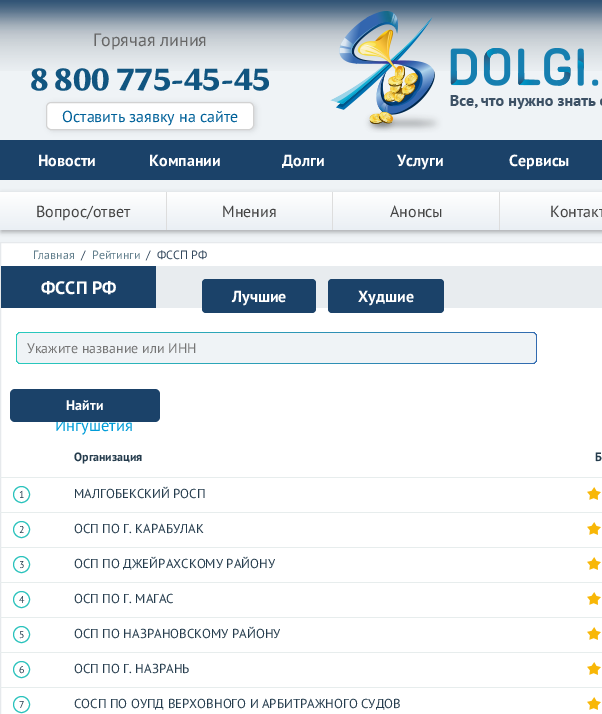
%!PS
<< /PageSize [602 714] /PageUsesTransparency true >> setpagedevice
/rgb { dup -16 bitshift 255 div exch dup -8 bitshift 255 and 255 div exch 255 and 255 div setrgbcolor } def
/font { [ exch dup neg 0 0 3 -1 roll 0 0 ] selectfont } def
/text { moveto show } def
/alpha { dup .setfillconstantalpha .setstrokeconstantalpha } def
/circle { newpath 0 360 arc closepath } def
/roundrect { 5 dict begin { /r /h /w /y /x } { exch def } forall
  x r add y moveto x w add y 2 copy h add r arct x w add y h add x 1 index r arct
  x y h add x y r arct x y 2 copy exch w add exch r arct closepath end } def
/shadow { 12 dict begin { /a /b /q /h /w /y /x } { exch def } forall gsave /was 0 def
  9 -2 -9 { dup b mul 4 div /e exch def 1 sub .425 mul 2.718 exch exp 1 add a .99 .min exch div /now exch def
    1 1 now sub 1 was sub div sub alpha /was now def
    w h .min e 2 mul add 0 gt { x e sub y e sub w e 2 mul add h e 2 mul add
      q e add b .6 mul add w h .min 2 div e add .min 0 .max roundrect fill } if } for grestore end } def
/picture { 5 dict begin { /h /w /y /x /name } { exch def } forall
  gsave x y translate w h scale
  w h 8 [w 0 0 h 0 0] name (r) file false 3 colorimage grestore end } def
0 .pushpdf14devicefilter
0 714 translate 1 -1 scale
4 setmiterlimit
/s1 { /PTSans-Regular 18 font 16#666666 rgb } def
/s2 { /Sansita-Bold 32 font 16#115580 rgb } def
/s3 { /PTSans-Regular 16 font 16#006199 rgb } def
/s4 { /PTSans-Bold 16 font 16#FFFFFF rgb } def
/s5 { /PTSans-Regular 16 font 16#444444 rgb } def
/s6 { /PTSans-Regular 12 font 16#607D8B rgb } def
/s7 { /PTSans-Regular 12 font 16#34495E rgb } def
/s8 { /PTSans-Bold 18 font 16#FFFFFF rgb } def
/s9 { /PTSans-Regular 14 font 16#757575 rgb } def
/s10 { /PTSans-Regular 16.5 font 16#009CD8 rgb } def
/s11 { /PTSans-Bold 14 font 16#FFFFFF rgb } def
/s12 { /PTSans-Bold 12 font 16#253C4D rgb } def
/s13 { /PTSans-Regular 10 font 16#253C4D rgb } def
/s14 { /PTSans-Regular 13 font 16#253C4D rgb } def
16#EFF3F6 rgb
0 0 602 714 rectfill
(pic1.raw) 0 0 602 71 picture
s1
(Горячая линия) 93 46 text
s2
(8 800 775-45-45) 30 90 text
16#000000 rgb
48 103 208 28 5 2.5 0.1 shadow
16#FFFFFF rgb
46.5 102.5 207 27 4.5 roundrect gsave fill grestore
16#D2D2D2 rgb
stroke
s3
(Оставить заявку на сайте) 62 122 text
(pic2.raw) 330 11 272 122 picture
16#1B4269 rgb
0 140 602 40 rectfill
s4
(Новости) 38 166 text
(Компании) 149 166 text
(Долги) 282 166 text
(Услуги) 397 166 text
(Сервисы) 509 166 text
16#000000 rgb
1 194 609 38 0 2.5 0.3 shadow
gsave 0 192 moveto 602 192 lineto 602 230 lineto 0 230 lineto closepath clip newpath
<< /ShadingType 2 /ColorSpace /DeviceRGB /Coords [500 192 500 230] /Extend [true true] /Function << /FunctionType 2 /Domain [0 1] /C0 [1 1 1] /C1 [0.918 0.937 0.957] /N 1 >> >> shfill grestore
16#DDDDDD rgb
166 192 1 38 rectfill
s5
(Вопрос/ответ) 36 217 text
16#DDDDDD rgb
332 192 1 38 rectfill
s5
(Мнения) 222 217 text
16#DDDDDD rgb
499 192 1 38 rectfill
s5
(Анонсы) 390 217 text
(Контакт) 550 217 text
16#FFFFFF rgb
0.5 242.5 moveto 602.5 242.5 lineto 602.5 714.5 lineto 0.5 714.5 lineto closepath gsave fill grestore
16#E6E9EC rgb
stroke
s6
(Главная) 33 259 text
s7
(/) 81 259 text
s6
(Рейтинги) 92 259 text
s7
(/) 146 259 text
(ФССП РФ) 157 259 text
16#E8ECEF rgb
156 266 446 42 rectfill
16#1B4269 rgb
1 266 155 42 rectfill
s8
(ФССП РФ) 41 294 text
16#1B4269 rgb
202 279 114 34 4 roundrect fill
s4
(Лучшие) 232 302 text
16#1B4269 rgb
328 279 116 34 4 roundrect fill
s4
(Худшие) 358 302 text
gsave 16 332 521 32 5 roundrect clip newpath
<< /ShadingType 2 /ColorSpace /DeviceRGB /Coords [16 348 537 348] /Extend [true true] /Function << /FunctionType 2 /Domain [0 1] /C0 [0.157 0.796 0.745] /C1 [0.196 0.42 0.69] /N 1 >> >> shfill grestore
16#EFF3F6 rgb
17 333 519 30 4 roundrect fill
s9
(Укажите название или ИНН) 27 353 text
s10
(Ингушетия) 55 431 text
16#1B4269 rgb
10 389 150 33 5 roundrect fill
s11
(Найти) 66 410 text
s12
(Организация) 74 461 text
(Б) 595 461 text
16#29C2BC rgb
21.5 494.5 8 circle stroke
s13
(1) 19 498 text
16#E7EDED rgb
0 477 602 1 rectfill
s14
(МАЛГОБЕКСКИЙ РОСП) 74 498 text
(pic3.raw) 587 487 14 13 picture
16#29C2BC rgb
21.5 529.5 8 circle stroke
s13
(2) 19 533 text
16#E7EDED rgb
0 512 602 1 rectfill
s14
(ОСП ПО Г. КАРАБУЛАК) 74 533 text
(pic3.raw) 587 522 14 13 picture
16#29C2BC rgb
21.5 564.5 8 circle stroke
s13
(3) 19 568 text
16#E7EDED rgb
0 547 602 1 rectfill
s14
(ОСП ПО ДЖЕЙРАХСКОМУ РАЙОНУ) 74 568 text
(pic3.raw) 587 557 14 13 picture
16#29C2BC rgb
21.5 599.5 8 circle stroke
s13
(4) 19 603 text
16#E7EDED rgb
0 582 602 1 rectfill
s14
(ОСП ПО Г. МАГАС) 74 603 text
(pic3.raw) 587 592 14 13 picture
16#29C2BC rgb
21.5 634.5 8 circle stroke
s13
(5) 19 638 text
16#E7EDED rgb
0 617 602 1 rectfill
s14
(ОСП ПО НАЗРАНОВСКОМУ РАЙОНУ) 74 638 text
(pic3.raw) 587 627 14 13 picture
16#29C2BC rgb
21.5 669.5 8 circle stroke
s13
(6) 19 673 text
16#E7EDED rgb
0 652 602 1 rectfill
s14
(ОСП ПО Г. НАЗРАНЬ) 74 673 text
(pic3.raw) 587 662 14 13 picture
16#29C2BC rgb
21.5 704.5 8 circle stroke
s13
(7) 19 708 text
16#E7EDED rgb
0 687 602 1 rectfill
s14
(СОСП ПО ОУПД ВЕРХОВНОГО И АРБИТРАЖНОГО СУДОВ) 74 708 text
(pic3.raw) 587 697 14 13 picture
.poppdf14devicefilter showpage
